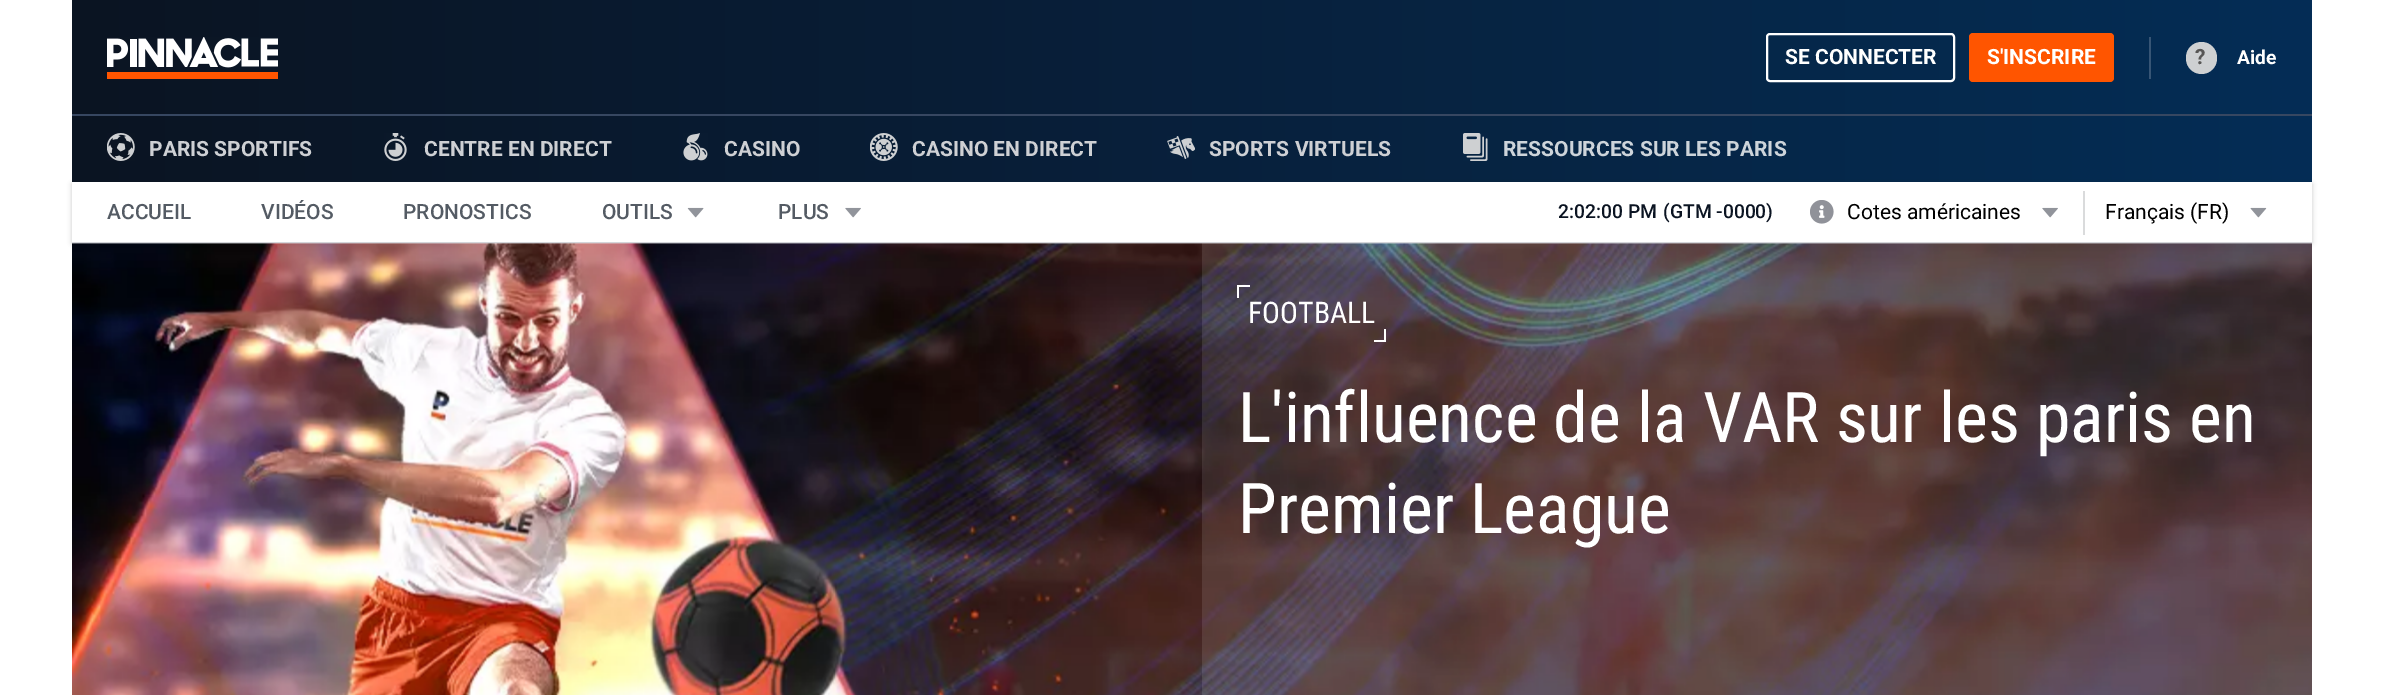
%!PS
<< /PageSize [2382 695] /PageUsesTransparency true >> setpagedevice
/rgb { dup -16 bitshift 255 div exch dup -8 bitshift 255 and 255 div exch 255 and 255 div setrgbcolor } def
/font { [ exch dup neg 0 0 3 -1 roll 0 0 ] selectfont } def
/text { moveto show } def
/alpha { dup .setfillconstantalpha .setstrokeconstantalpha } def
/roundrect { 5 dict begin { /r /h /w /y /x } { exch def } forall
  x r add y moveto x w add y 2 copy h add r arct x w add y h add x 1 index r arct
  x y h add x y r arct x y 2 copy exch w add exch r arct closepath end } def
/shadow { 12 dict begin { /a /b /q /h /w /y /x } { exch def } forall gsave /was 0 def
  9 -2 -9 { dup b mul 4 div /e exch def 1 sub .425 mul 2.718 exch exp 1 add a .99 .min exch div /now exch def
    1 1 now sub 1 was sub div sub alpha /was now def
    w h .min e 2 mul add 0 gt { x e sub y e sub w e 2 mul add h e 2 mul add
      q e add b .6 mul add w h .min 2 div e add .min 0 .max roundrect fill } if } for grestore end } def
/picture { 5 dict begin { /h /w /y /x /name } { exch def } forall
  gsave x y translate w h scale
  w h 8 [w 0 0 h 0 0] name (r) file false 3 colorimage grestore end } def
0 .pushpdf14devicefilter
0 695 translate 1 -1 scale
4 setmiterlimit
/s1 { /Roboto-Bold 21 font 16#FFFFFF rgb } def
/s2 { /Roboto-Bold 21 font 16#575655 rgb } def
/s3 { /Roboto-Bold 19.25 font 16#FFFFFF rgb } def
/s4 { /Roboto-Bold 21 font 16#CED0D4 rgb } def
/s5 { /Roboto-Bold 21 font 16#CDD4DA rgb } def
/s6 { /Roboto-Medium 21 font 16#545B64 rgb } def
/s7 { /Roboto-Medium 19.25 font 16#0B1422 rgb } def
/s8 { /Roboto-Regular 21 font 16#000000 rgb } def
/s9 { /RobotoCondensed-Regular 29.75 font 16#FFFFFF rgb } def
/s10 { /RobotoCondensed-Regular 70 font 16#FFFFFF rgb } def
16#FFFFFF rgb
0 0 2382 695 rectfill
gsave 72 0 moveto 2312 0 lineto 2312 182 lineto 72 182 lineto closepath clip newpath
<< /ShadingType 2 /ColorSpace /DeviceRGB /Coords [72 91 2312 91] /Extend [true true] /Function << /FunctionType 2 /Domain [0 1] /C0 [0.043 0.078 0.133] /C1 [0.016 0.176 0.337] /N 1 >> >> shfill grestore
(pic1.raw) 107 37 171 42 picture
2 setlinewidth
1767 34 187 47 3 roundrect stroke
s1
(SE CONNECTER) 1785 64 text
16#FF5500 rgb
1969 33 145 49 4 roundrect fill
s1
(S'INSCRIRE) 1987 64 text
16#375575 rgb
2149 37 2 42 rectfill
16#CED0D2 rgb
2186 42 31 32 15.5 roundrect fill
s2
(?) 2195 64 text
s3
(Aide) 2237 64 text
16#374761 rgb
72 114 2240 2 rectfill
(pic2.raw) 107 133 28 28 picture
s4
(PARIS SPORTIFS) 149 156 text
(pic3.raw) 384 133 23 28 picture
(CENTRE EN DIRECT) 424 156 text
(pic4.raw) 683 133 25 28 picture
(CASINO) 724 156 text
(pic5.raw) 870 133 28 28 picture
(CASINO EN DIRECT) 912 156 text
(pic6.raw) 1167 136 28 23 picture
(SPORTS VIRTUELS) 1209 156 text
(pic7.raw) 1463 133 25 28 picture
s5
(RESSOURCES SUR LES PARIS) 1503 156 text
16#F2F4F9 rgb
72 242 2240 2 rectfill
16#000000 rgb
72 184 2240 59 0 2.5 0.2 shadow
16#FFFFFF rgb
72 182 2240 60 rectfill
s6
(ACCUEIL) 107 219 text
(VIDÉOS) 261 219 text
(PRONOSTICS) 403 219 text
(OUTILS) 602 219 text
(pic8.raw) 687 207 17 11 picture
(PLUS) 778 219 text
(pic9.raw) 845 207 16 11 picture
s7
(2:02:00 PM) 1558 218 text
(\(GTM -0000\)) 1663 218 text
(pic10.raw) 1810 200 24 24 picture
s8
(Cotes américaines) 1847 219 text
(pic9.raw) 2042 207 16 11 picture
16#DADBDC rgb
2083 191 2 44 rectfill
s8
(Français \(FR\)) 2105 219 text
(pic11.raw) 2250 207 17 11 picture
(pic12.raw) 72 243 2240 452 picture
0.1 alpha
16#FFFFFF rgb
1202 243 1110 452 rectfill
1 alpha
1237 285 13 2 rectfill
1237 285 2 13 rectfill
s9
(FOOTBALL) 1248 323 text
1384 329 2 12 rectfill
1374 340 12 2 rectfill
s10
(L'influence de la VAR sur les paris en) 1238 442 text
(Premier League) 1238 533 text
.poppdf14devicefilter showpage
